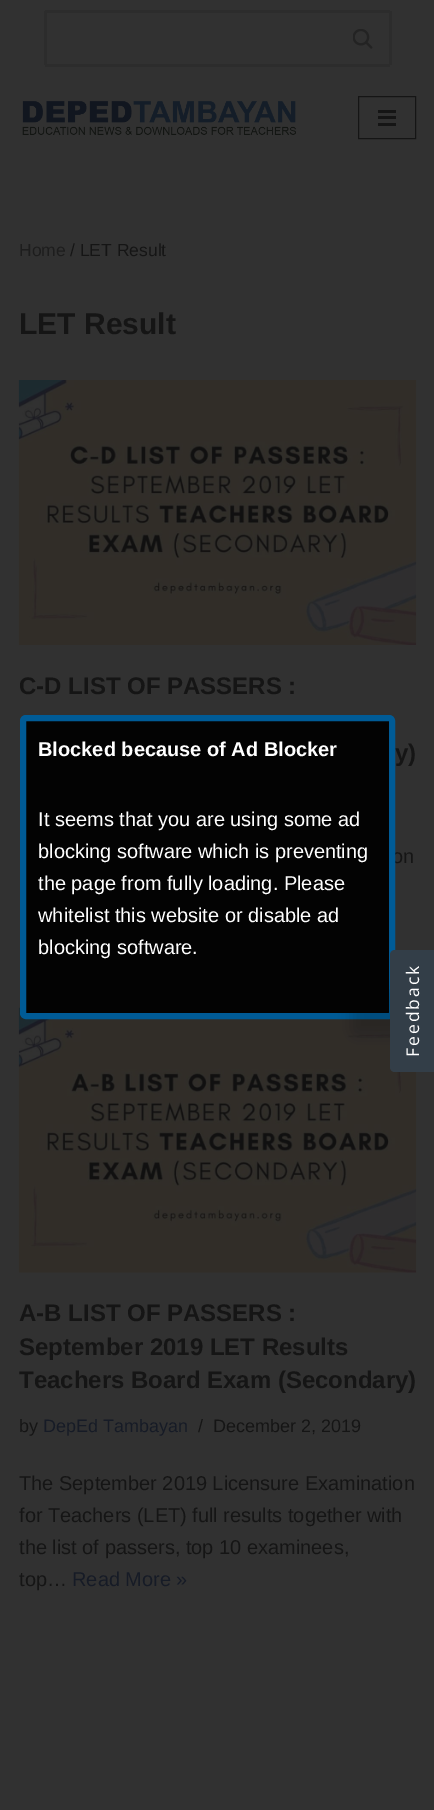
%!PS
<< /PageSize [434 1810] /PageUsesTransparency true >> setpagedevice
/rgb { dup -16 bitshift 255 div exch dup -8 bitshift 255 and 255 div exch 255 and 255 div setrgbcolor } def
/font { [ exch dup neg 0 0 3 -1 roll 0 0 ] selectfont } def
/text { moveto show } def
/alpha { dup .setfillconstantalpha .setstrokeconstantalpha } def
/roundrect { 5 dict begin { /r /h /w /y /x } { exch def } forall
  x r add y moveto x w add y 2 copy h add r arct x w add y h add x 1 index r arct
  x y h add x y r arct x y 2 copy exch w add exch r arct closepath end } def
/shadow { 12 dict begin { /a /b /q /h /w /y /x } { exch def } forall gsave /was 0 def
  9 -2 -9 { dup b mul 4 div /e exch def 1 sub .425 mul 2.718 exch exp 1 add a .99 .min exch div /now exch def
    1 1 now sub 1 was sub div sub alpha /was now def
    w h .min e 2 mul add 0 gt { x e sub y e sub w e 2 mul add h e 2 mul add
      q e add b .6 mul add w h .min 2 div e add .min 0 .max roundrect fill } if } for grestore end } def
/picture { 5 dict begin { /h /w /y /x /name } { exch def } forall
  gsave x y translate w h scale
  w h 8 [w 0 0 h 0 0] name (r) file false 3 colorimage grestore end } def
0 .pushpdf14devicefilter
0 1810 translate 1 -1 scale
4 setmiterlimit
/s1 { /LiberationSans-Regular 17.5 font 16#1D1D1D rgb } def
/s2 { /LiberationSans-Regular 17.5 font 16#151515 rgb } def
/s3 { /LiberationSans-Bold 30 font 16#151515 rgb } def
/s4 { /LiberationSans-Bold 24 font 16#151515 rgb } def
/s5 { /LiberationSans-Regular 20 font 16#151515 rgb } def
/s6 { /LiberationSans-Regular 18 font 16#151515 rgb } def
/s7 { /LiberationSans-Regular 18 font 16#161B26 rgb } def
/s8 { /LiberationSans-Regular 20 font 16#161B26 rgb } def
/s9 { /LiberationSans-Bold 20 font 16#FFFFFF rgb } def
/s10 { /LiberationSans-Regular 20 font 16#FFFFFF rgb } def
16#313131 rgb
0 0 434 1810 rectfill
16#2C2C2C rgb
45 10 345 3 rectfill
45 64 290 3 rectfill
44 11 3 54 rectfill
389 11 3 54 rectfill
335 64 55 3 rectfill
(pic1.raw) 353 29 20 20 picture
(pic2.raw) 22 101 274 34 picture
16#151515 rgb
358.5 96.5 57 42 rectstroke
378 110 18 3 rectfill
378 116 18 3 rectfill
378 123 18 3 rectfill
s1
(Home) 19 256 text
s2
(/ LET Result) 70 256 text
s3
(LET Result) 19 334 text
(pic3.raw) 18 380 399 265 picture
s4
(C-D LIST OF PASSERS :) 19 694 text
(y\)) 395 761 text
s5
(on) 392 863 text
(pic4.raw) 18 1007 399 266 picture
s4
(A-B LIST OF PASSERS :) 19 1321 text
(September 2019 LET Results) 19 1355 text
(Teachers Board Exam \(Secondary\)) 19 1388 text
s6
(by) 19 1432 text
s7
(DepEd Tambayan) 43 1432 text
s6
(/) 198 1432 text
(December 2, 2019) 213 1432 text
s5
(The September 2019 Licensure Examination) 19 1490 text
(for Teachers \(LET\) full results together with) 19 1522 text
(the list of passers, top 10 examinees,) 19 1554 text
(top…) 19 1586 text
s8
(Read More ») 72 1586 text
16#030303 rgb
23 718 369 298 3 roundrect gsave fill grestore
16#005B96 rgb
6 setlinewidth
stroke
s9
(Blocked because of Ad Blocker) 38 756 text
s10
(It seems that you are using some ad) 38 826 text
(blocking software which is preventing) 38 858 text
(the page from fully loading. Please) 38 890 text
(whitelist this website or disable ad) 38 922 text
(blocking software.) 38 954 text
16#000000 rgb
351 991 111 45 5 7.5 0.16 shadow
16#333E48 rgb
390 1067 moveto 390 955 lineto 390 952 392 950 395 950 curveto 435 950 lineto 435 1072 lineto 395 1072 lineto 392 1072 390 1070 390 1067 curveto closepath fill
/OpenSans-Regular 17.5 font
16#FFFFFF rgb
gsave 419 1057 translate -90 rotate 0 0 moveto 2 0 (Feedback) ashow grestore
.poppdf14devicefilter showpage
